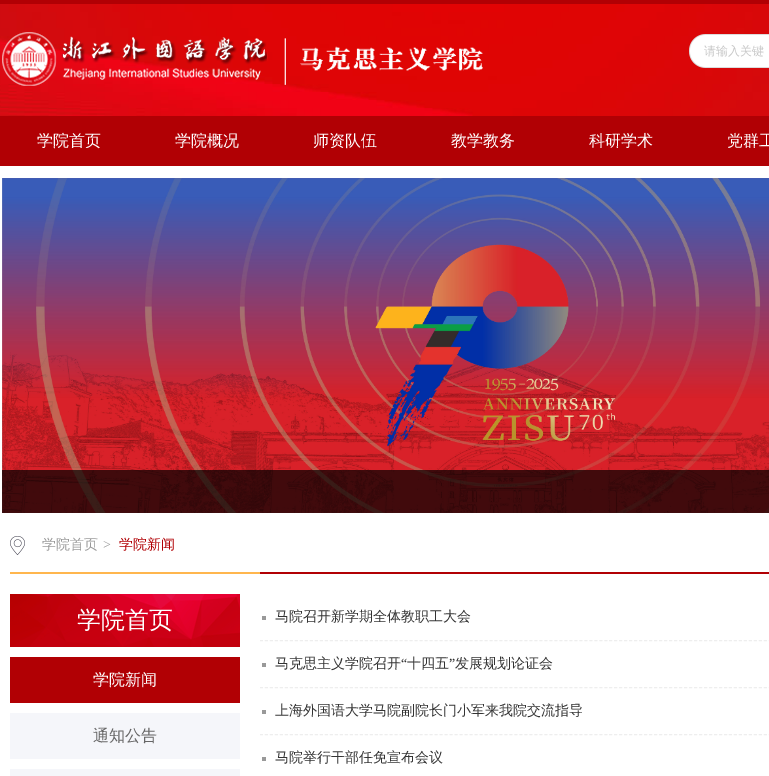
%!PS
<< /PageSize [769 776] /PageUsesTransparency true >> setpagedevice
/rgb { dup -16 bitshift 255 div exch dup -8 bitshift 255 and 255 div exch 255 and 255 div setrgbcolor } def
/font { [ exch dup neg 0 0 3 -1 roll 0 0 ] selectfont } def
/text { moveto show } def
/alpha { dup .setfillconstantalpha .setstrokeconstantalpha } def
/picture { 5 dict begin { /h /w /y /x /name } { exch def } forall
  gsave x y translate w h scale
  w h 8 [w 0 0 h 0 0] name (r) file false 3 colorimage grestore end } def
0 .pushpdf14devicefilter
0 776 translate 1 -1 scale
4 setmiterlimit
/s1 { /WenQuanYiZenHei-Medium 12 font 16#C8C8C8 rgb } def
/s2 { /WenQuanYiZenHei-Medium 16 font 16#FFFFFF rgb } def
/s3 { /WenQuanYiZenHei-Medium 14 font 16#999999 rgb } def
/s4 { /LiberationSerif-Regular 14 font 16#999999 rgb } def
/s5 { /WenQuanYiZenHei-Medium 14 font 16#B10004 rgb } def
/s6 { /WenQuanYiZenHei-Medium 24 font 16#FFFFFF rgb } def
/s7 { /WenQuanYiZenHei-Medium 16 font 16#666666 rgb } def
/s8 { /WenQuanYiZenHei-Medium 14 font 16#333333 rgb } def
/s9 { /LiberationSerif-Regular 14 font 16#333333 rgb } def
16#FFFFFF rgb
0 0 769 776 rectfill
16#B10004 rgb
0 0 769 4 rectfill
(pic1.raw) 0 4 769 112 picture
(pic2.raw) 2 32 481 54 picture
(pic3.raw) 689 34 80 34 picture
s1
(请输入关键) 704 55 text
16#B10004 rgb
0 116 769 50 rectfill
s2
(学院首页) 37 146 text
(学院概况) 175 146 text
(师资队伍) 313 146 text
(教学教务) 451 146 text
(科研学术) 589 146 text
(党群工) 727 146 text
(pic4.raw) 2 178 767 335 picture
0.7 alpha
16#000000 rgb
2 470 767 43 rectfill
1 alpha
16#B10004 rgb
260 572 509 2 rectfill
16#FFB64D rgb
10 572 250 2 rectfill
(pic5.raw) 10 536 15 19 picture
s3
(学院首页) 42 549 text
s4
(>) 103 549 text
s5
(学院新闻) 119 549 text
(pic6.raw) 10 594 230 53 picture
s6
(学院首页) 77 628 text
16#B10004 rgb
10 657 230 46 rectfill
s2
(学院新闻) 93 685 text
16#F5F6FA rgb
10 713 230 46 rectfill
s7
(通知公告) 93 741 text
16#F5F6FA rgb
10 769 230 7 rectfill
16#999999 rgb
262 616 4 4 rectfill
16#EEEEEE rgb
[3 1.99] 0 setdash
260 640.5 moveto 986 640.5 lineto stroke
s8
(马院召开新学期全体教职工大会) 275 621 text
16#999999 rgb
262 663 4 4 rectfill
16#EEEEEE rgb
260 687.5 moveto 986 687.5 lineto stroke
s8
(马克思主义学院召开) 275 668 text
s9
(“) 401 668 text
s8
(十四五) 407 668 text
s9
(”) 449 668 text
s8
(发展规划论证会) 455 668 text
16#999999 rgb
262 710 4 4 rectfill
16#EEEEEE rgb
260 734.5 moveto 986 734.5 lineto stroke
s8
(上海外国语大学马院副院长门小军来我院交流指导) 275 715 text
16#999999 rgb
262 757 4 4 rectfill
s8
(马院举行干部任免宣布会议) 275 762 text
.poppdf14devicefilter showpage
